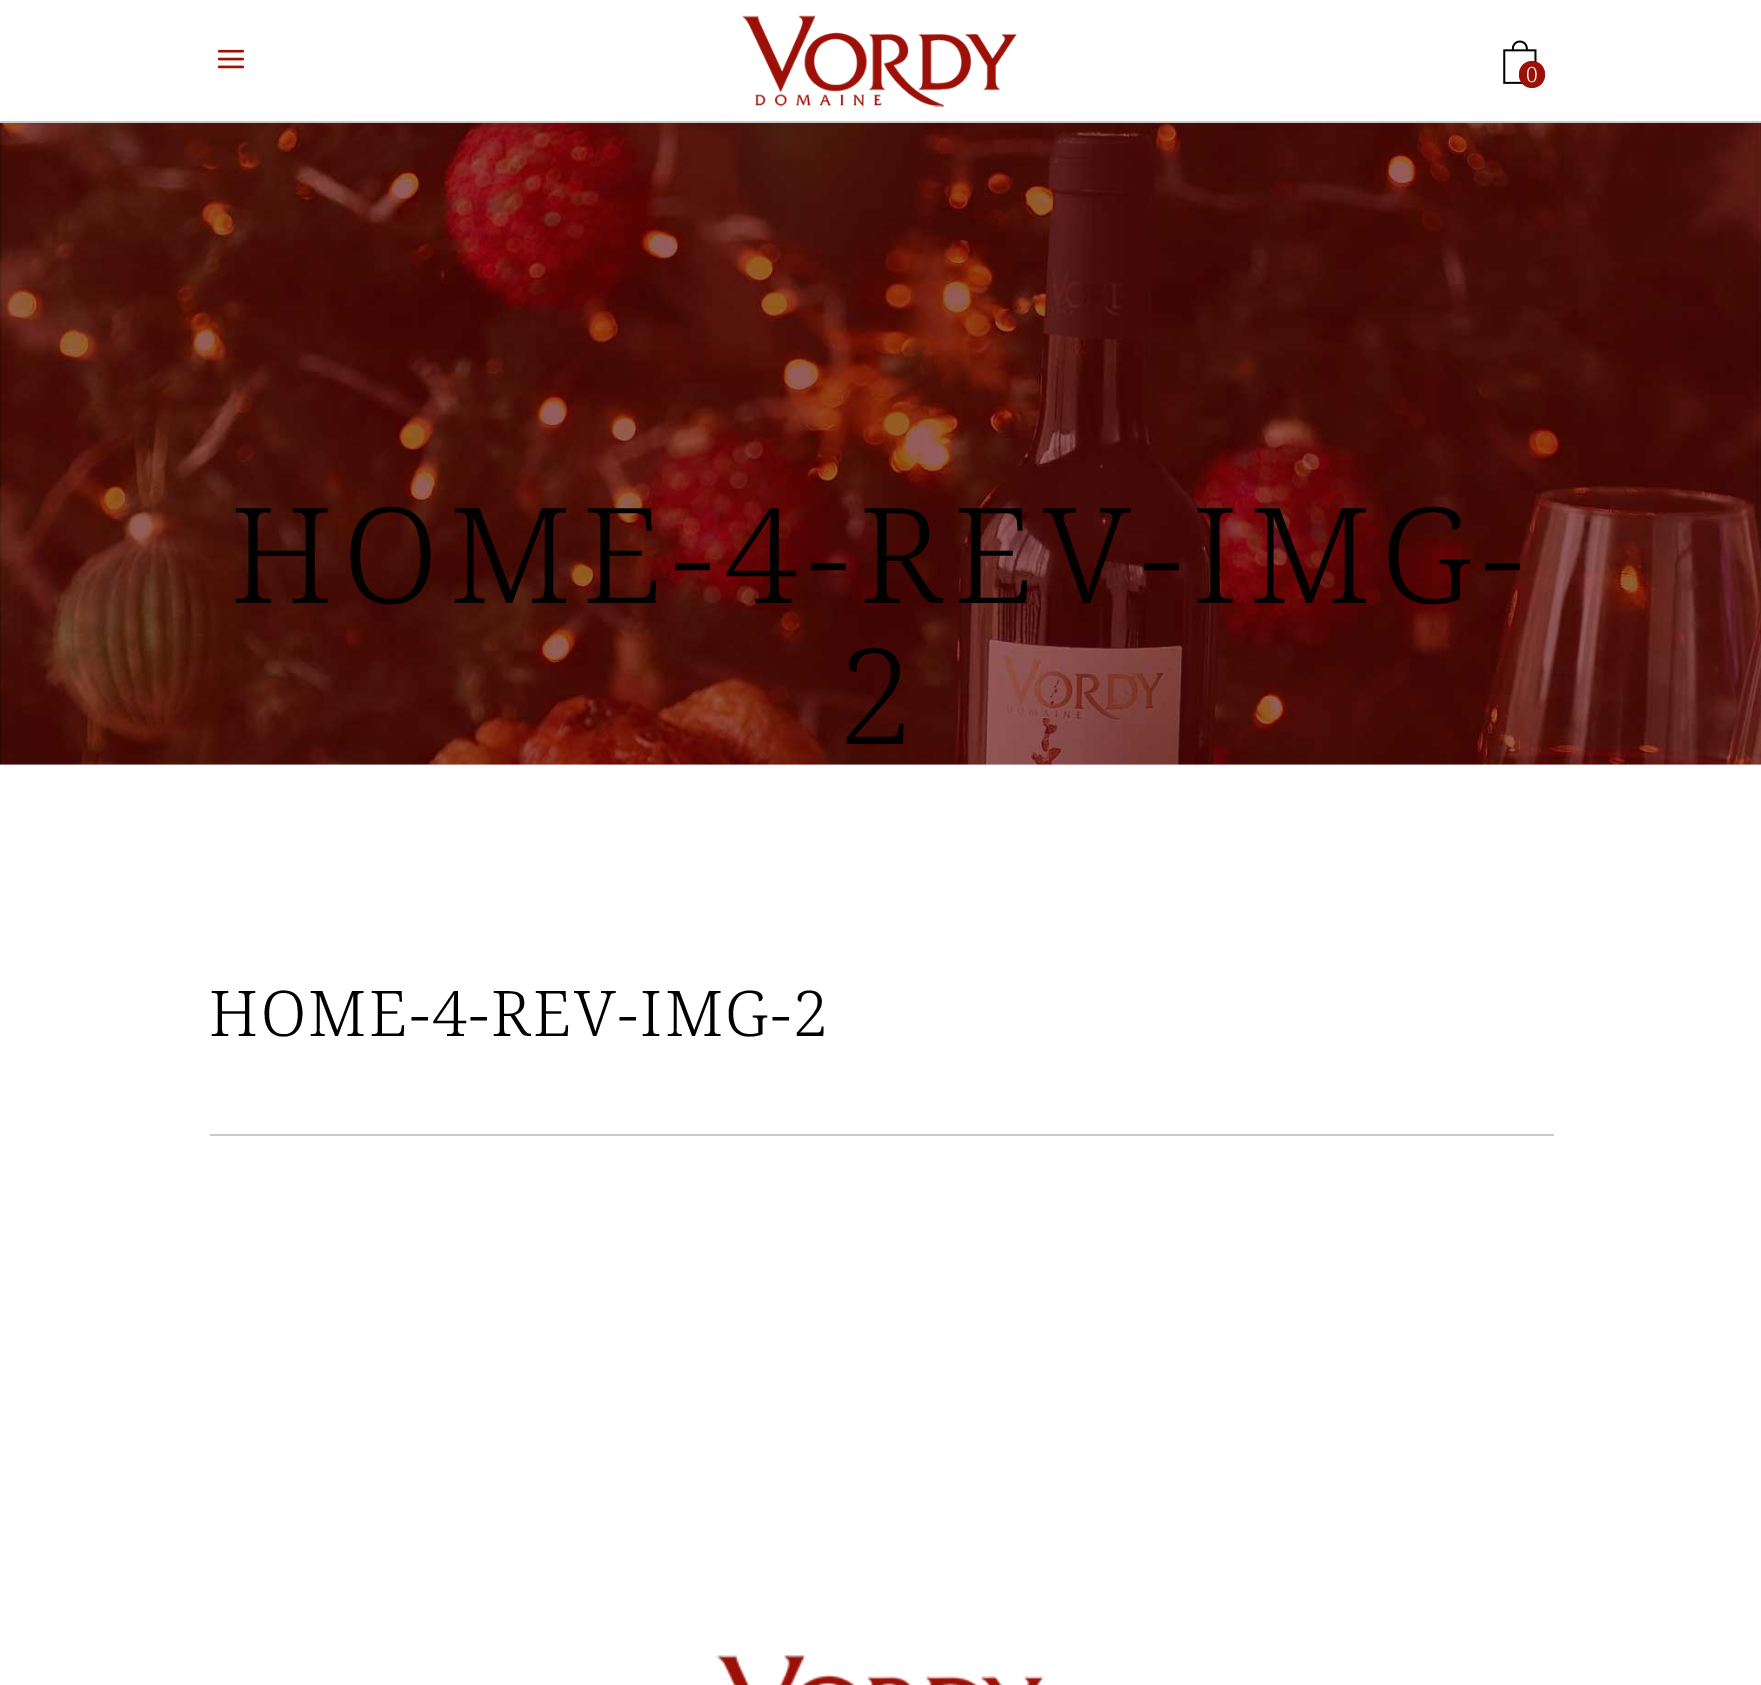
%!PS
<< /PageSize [1761 1685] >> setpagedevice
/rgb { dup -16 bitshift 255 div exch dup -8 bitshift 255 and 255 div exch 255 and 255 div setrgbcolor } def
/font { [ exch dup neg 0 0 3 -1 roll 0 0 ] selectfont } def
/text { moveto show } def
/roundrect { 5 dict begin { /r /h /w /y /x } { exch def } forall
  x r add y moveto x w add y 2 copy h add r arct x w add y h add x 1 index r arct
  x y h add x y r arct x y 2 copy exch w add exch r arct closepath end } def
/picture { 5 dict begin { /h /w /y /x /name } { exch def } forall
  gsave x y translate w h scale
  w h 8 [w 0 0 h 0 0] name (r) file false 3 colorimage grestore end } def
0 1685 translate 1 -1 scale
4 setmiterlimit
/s1 { /NotoSerif-Light 21 font 16#FFFFFF rgb } def
16#FFFFFF rgb
0 0 1761 1685 rectfill
16#C9C9C9 rgb
0 121 1761 2 rectfill
(pic1.raw) 217 49 28 20 picture
(pic2.raw) 742 15 275 92 picture
(pic3.raw) 1503 40 34 44 picture
16#9C1006 rgb
1519 61 26 27 13 roundrect fill
s1
(0) 1526 82 text
16#F4F4F4 rgb
0 764 1761 1 rectfill
(pic4.raw) 0 123 1761 642 picture
/NotoSerif-Light 133 font
16#000000 rgb
230 603 moveto 10 0 (HOME-4-REV-IMG-) ashow
839 744 moveto 10 0 (2) ashow
/NotoSerif-Light 63 font
209 1036 moveto 2.5 0 (HOME-4-REV-IMG-2) ashow
16#C9C9C9 rgb
210 1134 1344 2 rectfill
(pic5.raw) 715 1655 329 30 picture
showpage
